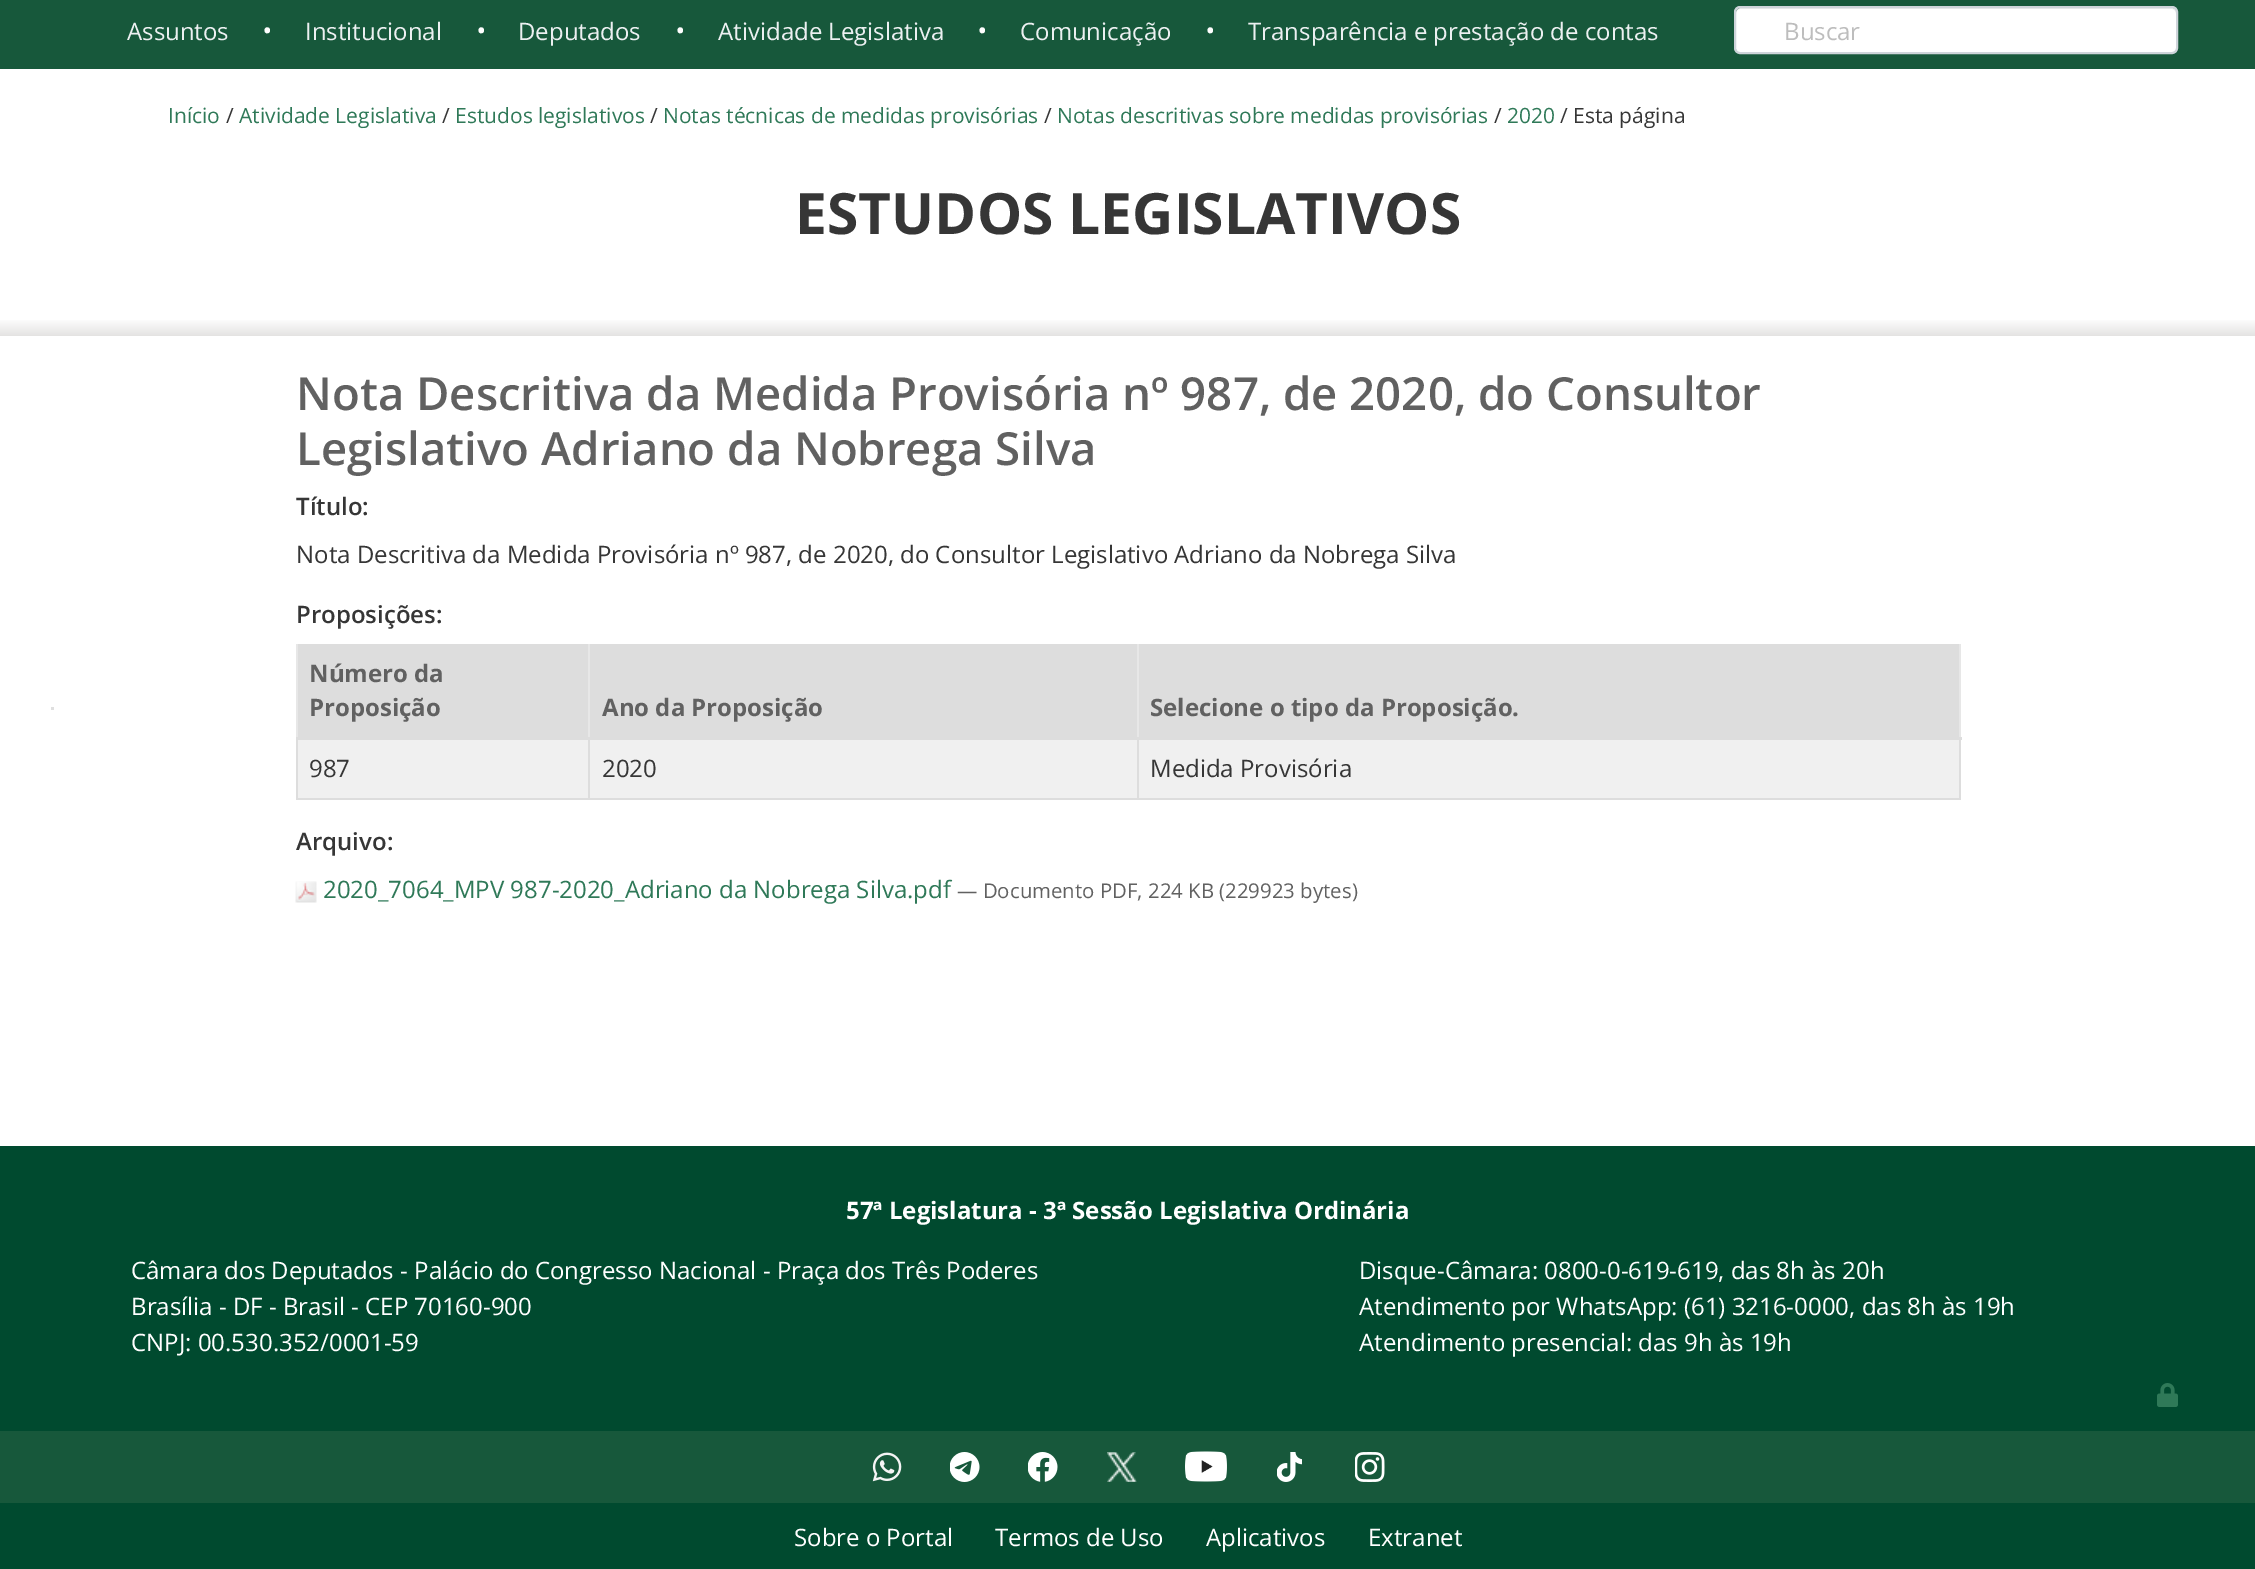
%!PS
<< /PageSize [2255 1569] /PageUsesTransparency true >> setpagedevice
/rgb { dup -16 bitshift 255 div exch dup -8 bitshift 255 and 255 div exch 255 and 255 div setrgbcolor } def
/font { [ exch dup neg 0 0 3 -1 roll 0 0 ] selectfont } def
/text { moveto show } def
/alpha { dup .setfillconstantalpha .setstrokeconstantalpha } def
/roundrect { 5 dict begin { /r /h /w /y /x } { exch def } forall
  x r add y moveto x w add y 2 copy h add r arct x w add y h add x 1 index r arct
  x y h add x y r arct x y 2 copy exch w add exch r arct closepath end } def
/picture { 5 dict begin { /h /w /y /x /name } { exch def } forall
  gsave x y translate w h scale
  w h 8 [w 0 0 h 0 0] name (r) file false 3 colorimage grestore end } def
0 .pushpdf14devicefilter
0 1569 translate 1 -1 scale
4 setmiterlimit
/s1 { /OpenSans-Regular 24 font 16#ECF0F1 rgb } def
/s2 { /OpenSans-Regular 48 font 16#FFFFFF rgb } def
/s3 { /OpenSans-Regular 24 font 16#BDBDBD rgb } def
/s4 { /OpenSans-Regular 21 font 16#2F7958 rgb } def
/s5 { /OpenSans-Regular 21 font 16#363636 rgb } def
/s6 { /OpenSans-Bold 57 font 16#363636 rgb } def
/s7 { /OpenSans-SemiBold 45.6 font 16#616161 rgb } def
/s8 { /OpenSans-SemiBold 24 font 16#363636 rgb } def
/s9 { /OpenSans-Regular 24 font 16#363636 rgb } def
/s10 { /OpenSans-Bold 24 font 16#616161 rgb } def
/s11 { /OpenSans-Regular 24 font 16#2F7958 rgb } def
/s12 { /OpenSans-Regular 20.4 font 16#616161 rgb } def
/s13 { /OpenSans-Bold 24 font 16#FFFFFF rgb } def
/s14 { /OpenSans-Regular 24 font 16#FFFFFF rgb } def
16#FFFFFF rgb
0 0 2255 1569 rectfill
16#17583B rgb
0 0 2255 69 rectfill
s1
(Assuntos) 127 40 text
s2
(·) 261 47 text
s1
(Institucional) 305 40 text
s2
(·) 475 47 text
s1
(Deputados) 518 40 text
s2
(·) 674 47 text
s1
(Atividade Legislativa) 718 40 text
s2
(·) 976 47 text
s1
(Comunicação) 1020 40 text
s2
(·) 1204 47 text
s1
(Transparência e prestação de contas) 1248 40 text
16#FFFFFF rgb
1736 8 441 45 5 roundrect fill
0.07 alpha
16#000000 rgb
1740 9 moveto 2172 9 lineto 2174 9 2176 11 2176 14 curveto 2176 51 lineto 2177 50 2177 49 2177 48 curveto 2177 13 lineto 2177 10 2175 8 2172 8 curveto 1741 8 lineto 1738 8 1736 10 1736 13 curveto 1736 14 lineto 1736 11 1738 9 1740 9 curveto closepath fill
1 alpha
16#CED4DA rgb
2 setlinewidth
1735 7 442 46 5 roundrect stroke
s3
(Buscar) 1784 40 text
s4
(Início) 168 123 text
s5
(/) 226 123 text
s4
(Atividade Legislativa) 239 123 text
s5
(/) 442 123 text
s4
(Estudos legislativos) 455 123 text
s5
(/) 650 123 text
s4
(Notas técnicas de medidas provisórias) 663 123 text
s5
(/) 1044 123 text
s4
(Notas descritivas sobre medidas provisórias) 1057 123 text
s5
(/) 1494 123 text
s4
(2020) 1507 123 text
s5
(/ Esta página) 1560 123 text
s6
(ESTUDOS LEGISLATIVOS) 795 234 text
gsave 0 320 moveto 2255 320 lineto 2255 336 lineto 0 336 lineto closepath clip newpath
<< /ShadingType 2 /ColorSpace /DeviceRGB /Coords [1128 318 1128 336] /Extend [true true] /Function << /FunctionType 2 /Domain [0 1] /C0 [1 1 1] /C1 [0.894 0.89 0.886] /N 1 >> >> shfill grestore
16#DFDFDF rgb
51 707 3 3 rectfill
s7
(Nota Descritiva da Medida Provisória nº 987, de 2020, do Consultor) 296 410 text
(Legislativo Adriano da Nobrega Silva) 296 465 text
s8
(Título:) 296 515 text
s9
(Nota Descritiva da Medida Provisória nº 987, de 2020, do Consultor Legislativo Adriano da Nobrega Silva) 296 563 text
s8
(Proposições:) 296 623 text
16#DDDDDD rgb
296 798 1665 2 rectfill
296 740 2 60 rectfill
298 644 290 93 rectfill
16#E7E7E7 rgb
296 644 2 96 rectfill
s10
(Número da) 309 682 text
(Proposição) 309 716 text
16#DDDDDD rgb
590 644 547 93 rectfill
16#F0F0F0 rgb
298 740 1661 58 rectfill
16#DDDDDD rgb
588 738 2 62 rectfill
16#E7E7E7 rgb
588 644 2 96 rectfill
s10
(Ano da Proposição) 602 716 text
16#DDDDDD rgb
1139 644 820 93 rectfill
1959 738 2 62 rectfill
16#E7E7E7 rgb
1959 644 2 96 rectfill
16#DDDDDD rgb
1137 738 2 62 rectfill
16#E7E7E7 rgb
1137 644 2 96 rectfill
16#DDDDDD rgb
296 737 1666 3 rectfill
s10
(Selecione o tipo da Proposição.) 1150 716 text
s9
(987) 309 777 text
(2020) 602 777 text
(Medida Provisória) 1150 777 text
s8
(Arquivo:) 296 850 text
(pic1.raw) 295 881 22 22 picture
s11
(2020_7064_MPV 987-2020_Adriano da Nobrega Silva.pdf) 323 898 text
s12
(— Documento PDF, 224 KB \(229923 bytes\)) 957 898 text
16#004A2F rgb
0 1146 2255 285 rectfill
s13
(57ª Legislatura - 3ª Sessão Legislativa Ordinária) 846 1219 text
s14
(Câmara dos Deputados - Palácio do Congresso Nacional - Praça dos Três Poderes) 131 1279 text
(Brasília - DF - Brasil - CEP 70160-900) 131 1315 text
(CNPJ: 00.530.352/0001-59) 131 1351 text
(Disque-Câmara: 0800-0-619-619, das 8h às 20h) 1359 1279 text
(Atendimento por WhatsApp: \(61\) 3216-0000, das 8h às 19h) 1359 1315 text
(Atendimento presencial: das 9h às 19h) 1359 1351 text
(pic2.raw) 2157 1383 21 24 picture
16#17583B rgb
0 1431 2255 72 rectfill
(pic3.raw) 872 1452 30 30 picture
(pic4.raw) 950 1452 30 30 picture
(pic5.raw) 1028 1452 30 30 picture
(pic6.raw) 1107 1452 30 30 picture
(pic7.raw) 1185 1451 42 31 picture
(pic8.raw) 1277 1452 25 30 picture
(pic9.raw) 1355 1452 30 30 picture
16#004A2F rgb
0 1503 2255 66 rectfill
s14
(Sobre o Portal) 794 1546 text
(Termos de Uso) 995 1546 text
(Aplicativos) 1206 1546 text
(Extranet) 1368 1546 text
.poppdf14devicefilter showpage
